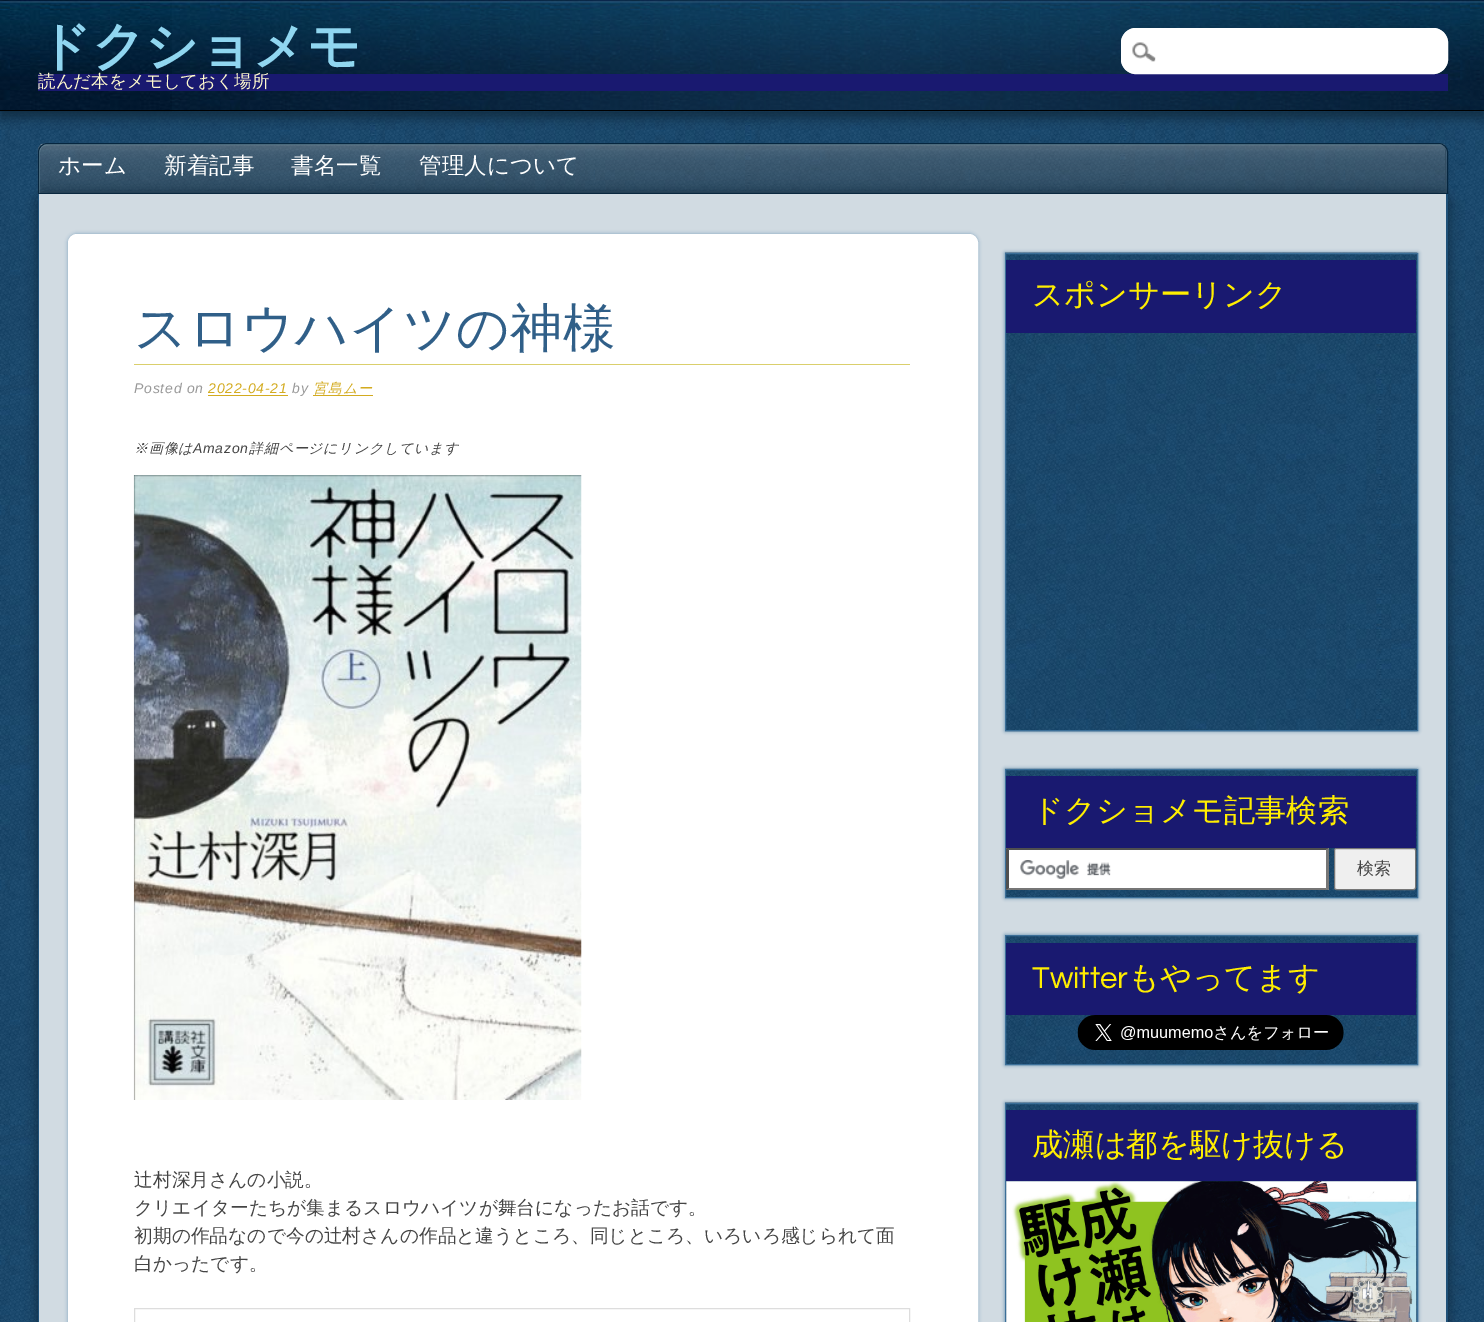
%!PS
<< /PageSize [1484 1322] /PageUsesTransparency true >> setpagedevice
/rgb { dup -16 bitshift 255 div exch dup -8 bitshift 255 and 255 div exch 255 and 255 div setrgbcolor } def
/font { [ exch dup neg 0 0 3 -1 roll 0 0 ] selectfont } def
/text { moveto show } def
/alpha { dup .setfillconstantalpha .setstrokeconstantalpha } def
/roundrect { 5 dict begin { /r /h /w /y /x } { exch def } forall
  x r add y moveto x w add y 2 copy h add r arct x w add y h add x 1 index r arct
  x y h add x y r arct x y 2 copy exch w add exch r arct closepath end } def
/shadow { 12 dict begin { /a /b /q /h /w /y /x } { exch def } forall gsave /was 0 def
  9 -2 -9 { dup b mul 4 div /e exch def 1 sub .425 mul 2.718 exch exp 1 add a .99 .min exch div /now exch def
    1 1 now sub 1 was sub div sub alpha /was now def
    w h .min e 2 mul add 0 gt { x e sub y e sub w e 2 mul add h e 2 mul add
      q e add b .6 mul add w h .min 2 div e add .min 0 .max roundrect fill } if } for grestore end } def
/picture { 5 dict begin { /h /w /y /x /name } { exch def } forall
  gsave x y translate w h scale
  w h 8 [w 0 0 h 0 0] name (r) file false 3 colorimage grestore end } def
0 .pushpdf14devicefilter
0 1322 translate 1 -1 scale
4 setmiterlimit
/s1 { /WenQuanYiZenHei-Bold 52.5 font 16#90D6F0 rgb } def
/s2 { /WenQuanYiZenHei-Medium 17.5 font 16#FFFACD rgb } def
/s3 { /WenQuanYiZenHei-Medium 22.5 font 16#FFFFFF rgb } def
/s4 { /WenQuanYiZenHei-Medium 52.5 font 16#305F88 rgb } def
/s5 { /WenQuanYiZenHei-Medium 18.75 font 16#444444 rgb } def
/s6 { /WenQuanYiZenHei-Medium 31.25 font 16#FFEE00 rgb } def
/s7 { /WenQuanYiZenHei-Medium 17 font 16#444444 rgb } def
/s8 { /Questrial-Regular 31.25 font 16#FFEE00 rgb } def
16#FFFFFF rgb
0 0 1484 1322 rectfill
(pic1.raw) 0 111 1484 1211 picture
(pic2.raw) 0 0 1484 112 picture
gsave
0 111 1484 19 rectclip
16#102D43 rgb
0 6 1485 112 0 6 1 shadow
grestore
(pic3.raw) 172 0 1312 112 picture
16#000000 rgb
0 110 1484 1 rectfill
s1
(ドクショメモ) 38 64 text
16#191970 rgb
38 74 1410 17 rectfill
s2
(読んだ本をメモしておく場所) 38 87 text
(pic4.raw) 37 143 1411 51 picture
16#324D62 rgb
39 191 moveto 39 193 lineto 1446 193 lineto 1446 152 lineto 1446 150 1445 149 1445 148 curveto 1445 191 lineto closepath fill
16#648392 rgb
48 145 moveto 1440 145 lineto 1442 145 lineto 1441 145 1440 144 1438 144 curveto 47 144 lineto 43 144 39 148 39 152 curveto 39 193 lineto 40 193 lineto 40 152 lineto 40 148 43 145 48 145 curveto closepath fill
16#06263F rgb
47 143.5 moveto 1439 143.5 lineto 1443.5 143.5 1447.5 147.5 1447.5 152 curveto 1447.5 193.5 lineto 38.5 193.5 lineto 38.5 152 lineto 38.5 147.5 42.5 143.5 47 143.5 curveto closepath stroke
16#FFFFFF rgb
1121 28 327 46 15 roundrect fill
(pic5.raw) 1132 42 24 20 picture
1121.5 28.5 326 45 14.5 roundrect stroke
16#0F293E rgb
38 194 1410 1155 9 6 1 shadow
s3
(ホーム) 58 173 text
(新着記事) 164 173 text
(書名一覧) 291 173 text
(管理人について) 419 173 text
16#D1DBE2 rgb
39 194 1407 1128 rectfill
16#1E5078 rgb
38 194 moveto 1448 194 lineto 1448 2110 lineto 1448 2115 1444 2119 1439 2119 curveto 46 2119 lineto 41 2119 38 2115 38 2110 curveto closepath 39 194 moveto 1446 194 lineto 1446 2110 lineto 1446 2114 1443 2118 1439 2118 curveto 46 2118 lineto 42 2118 39 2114 39 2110 curveto closepath eofill
16#7DA1BB rgb
68 234 910 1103 9 2 1 shadow
16#FFFFFF rgb
68.5 234.5 909 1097 8.5 roundrect gsave fill grestore
stroke
16#DACF6C rgb
134 364 776 1 rectfill
s4
(スロウハイツの神様) 134 346 text
/LiberationSans-Italic 14 font
16#999999 rgb
134 393 moveto 0.75 0 (Posted on) ashow
16#D3AB20 rgb
208 393 moveto 0.75 0 (2022-04-21) ashow
208 395 80 1 rectfill
16#999999 rgb
292 393 moveto 0.75 0 (by) ashow
/WenQuanYiZenHei-MediumItalic 14 font
16#D3AB20 rgb
313 393 moveto 0.75 0 (宮島ムー) ashow
313 395 60 1 rectfill
16#444444 rgb
134 453 moveto 0.75 0 (※画像は) ashow
/LiberationSans-Italic 14 font
193 453 moveto 0.75 0 (Amazon) ashow
/WenQuanYiZenHei-MediumItalic 14 font
249 453 moveto 0.75 0 (詳細ページにリンクしています) ashow
(pic6.raw) 133 475 449 625 picture
s5
(辻村深月さんの小説。) 134 1186 text
(クリエイターたちが集まるスロウハイツが舞台になったお話です。) 134 1214 text
(初期の作品なので今の辻村さんの作品と違うところ、同じところ、いろいろ感じられて面) 134 1242 text
(白かったです。) 134 1270 text
16#DDDDDD rgb
134.5 1308.5 775 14 rectstroke
16#5483A7 rgb
1005 253 413 478 0 2 1 shadow
(pic7.raw) 1005 252 413 480 picture
16#3B6F98 rgb
1005.5 253.5 412 477 rectstroke
16#191970 rgb
1006 260 410 73 rectfill
s6
(スポンサーリンク) 1032 305 text
16#5483A7 rgb
1005 769 413 129 0 2 1 shadow
(pic8.raw) 1005 768 413 129 picture
16#3B6F98 rgb
1005.5 769.5 412 128 rectstroke
16#191970 rgb
1006 776 410 72 rectfill
s6
(ドクショメモ記事検索) 1032 821 text
16#FFFFFF rgb
1006 848 323 42 rectfill
(pic9.raw) 1020 860 91 19 picture
16#4F4F4F rgb
1006 848 moveto 1329 848 lineto 1326 850 lineto 1009 850 lineto closepath fill
16#767676 rgb
1329 848 moveto 1329 890 lineto 1326 888 lineto 1326 850 lineto closepath fill
1329 890 moveto 1006 890 lineto 1009 888 lineto 1326 888 lineto closepath fill
16#4F4F4F rgb
1006 890 moveto 1006 848 lineto 1009 850 lineto 1009 888 lineto closepath fill
16#EFEFEF rgb
1334.5 848.5 81 41 2 roundrect gsave fill grestore
16#767676 rgb
stroke
s7
(検索) 1357 874 text
16#5483A7 rgb
1005 935 413 130 0 2 1 shadow
(pic10.raw) 1006 936 411 128 picture
16#3B6F98 rgb
1005.5 935.5 412 129 rectstroke
16#191970 rgb
1006 943 410 72 rectfill
s8
(Twitter) 1032 988 text
s6
(もやってます) 1128 988 text
(pic11.raw) 1077 1015 267 35 picture
16#5483A7 rgb
1005 1103 413 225 0 2 1 shadow
(pic12.raw) 1005 1102 413 220 picture
16#3B6F98 rgb
1005.5 1103.5 412 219 rectstroke
16#191970 rgb
1006 1110 410 71 rectfill
s6
(成瀬は都を駆け抜ける) 1032 1155 text
(pic13.raw) 1006 1181 411 141 picture
.poppdf14devicefilter showpage
